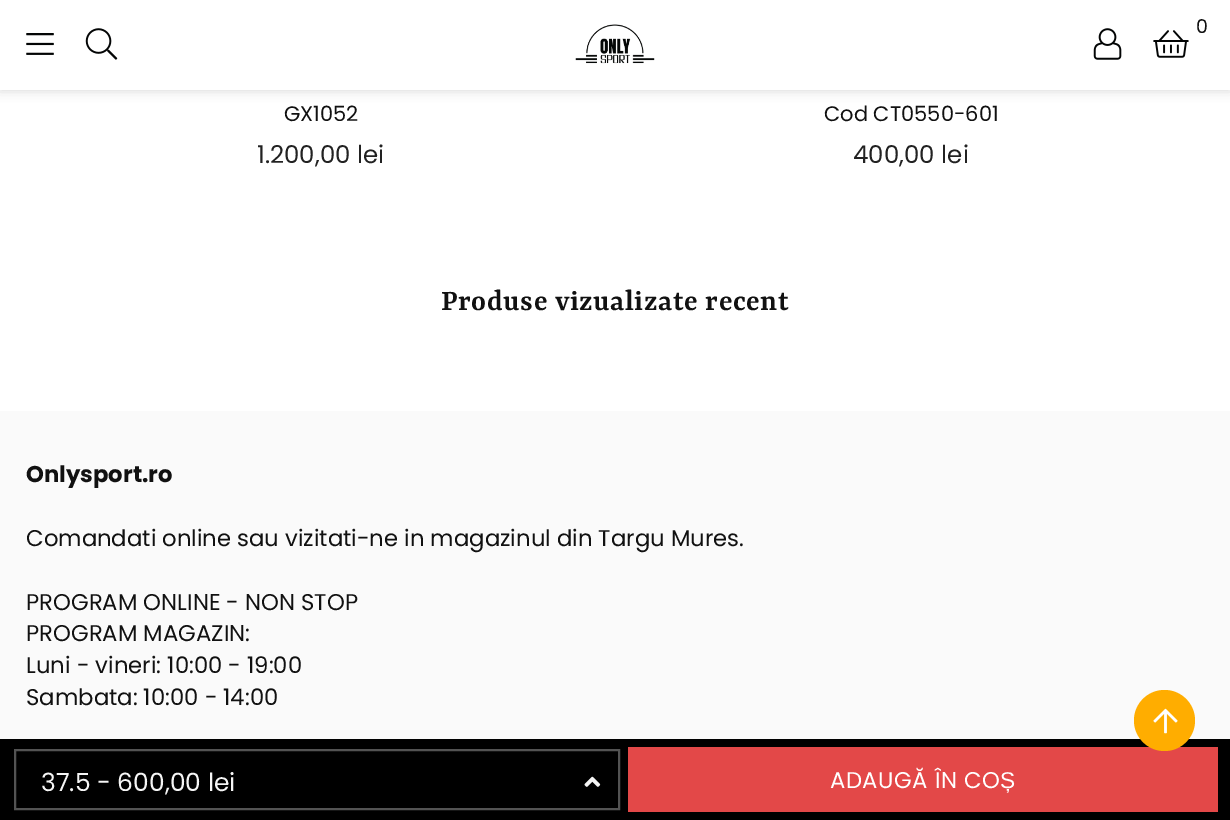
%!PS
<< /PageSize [1230 820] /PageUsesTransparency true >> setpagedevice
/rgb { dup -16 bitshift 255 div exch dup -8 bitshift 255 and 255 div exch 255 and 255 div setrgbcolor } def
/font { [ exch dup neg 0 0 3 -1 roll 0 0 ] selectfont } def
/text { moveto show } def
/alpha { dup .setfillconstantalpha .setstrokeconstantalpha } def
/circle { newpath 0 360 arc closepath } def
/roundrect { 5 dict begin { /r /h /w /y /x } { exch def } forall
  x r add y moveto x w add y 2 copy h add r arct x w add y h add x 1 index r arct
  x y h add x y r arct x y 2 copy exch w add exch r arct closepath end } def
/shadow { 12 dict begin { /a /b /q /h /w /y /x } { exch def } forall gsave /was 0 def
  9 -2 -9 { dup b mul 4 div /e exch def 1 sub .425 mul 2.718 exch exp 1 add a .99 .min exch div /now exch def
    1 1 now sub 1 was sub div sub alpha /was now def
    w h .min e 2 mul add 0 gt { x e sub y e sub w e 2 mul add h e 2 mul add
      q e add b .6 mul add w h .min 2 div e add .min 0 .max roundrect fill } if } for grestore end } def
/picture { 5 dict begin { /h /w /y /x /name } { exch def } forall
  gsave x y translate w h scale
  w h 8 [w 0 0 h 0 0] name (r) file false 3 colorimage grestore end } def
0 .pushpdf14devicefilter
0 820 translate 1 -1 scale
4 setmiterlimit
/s1 { /Poppins-Regular 19 font 16#111111 rgb } def
/s2 { /Poppins-Regular 21 font 16#111111 rgb } def
/s3 { /Poppins-Regular 24.5 font 16#222222 rgb } def
/s4 { /Poppins-Regular 25 font 16#F5F5F5 rgb } def
/s5 { /Poppins-Bold 22.75 font 16#111111 rgb } def
/s6 { /Poppins-Regular 22.75 font 16#111111 rgb } def
16#FFFFFF rgb
0 0 1230 820 rectfill
16#000000 rgb
0 0 1230 89 0 6 0.2 shadow
16#FFFFFF rgb
0 0 1230 90 rectfill
(pic1.raw) 26 33 28 22 picture
(pic2.raw) 85 28 33 32 picture
(pic3.raw) 575 24 80 40 picture
s1
(0) 1196 33 text
(pic4.raw) 1153 30 36 28 picture
(pic5.raw) 1093 28 29 32 picture
s2
(GX1052) 284 121 text
s3
(1.200,00 lei) 257 163 text
s2
(Cod CT0550-601) 824 121 text
s3
(400,00 lei) 853 163 text
/Yrsa-SemiBold 31.5 font
16#111111 rgb
441 310 moveto 0.6 0 (Produse vizualizate recent) ashow
16#000000 rgb
0 739 1230 81 rectfill
16#535353 rgb
2 setlinewidth
15 750 604 59 rectstroke
s4
(37.5 - 600,00 lei) 41 791 text
(pic6.raw) 584 776 17 11 picture
16#E34848 rgb
628 747 590 65 rectfill
/Poppins-Regular 22.75 font
16#FFFFFF rgb
830 788 moveto 0.5 0 (ADAUGĂ ÎN CO) ashow
/LiberationSans-Regular 22.75 font
1000 788 moveto 0.5 0 (Ș) ashow
16#FAFAFA rgb
0 411 1230 328 rectfill
s5
(Onlysport.ro) 26 482 text
s6
(Comandati online sau vizitati-ne in magazinul din Targu Mures.) 26 546 text
(PROGRAM ONLINE - NON STOP) 26 610 text
(PROGRAM MAGAZIN:) 26 641 text
(Luni - vineri: 10:00 - 19:00) 26 673 text
(Sambata: 10:00 - 14:00) 26 705 text
16#FFAD00 rgb
1164.5 720.5 30.5 circle fill
(pic7.raw) 1153 708 25 26 picture
.poppdf14devicefilter showpage
